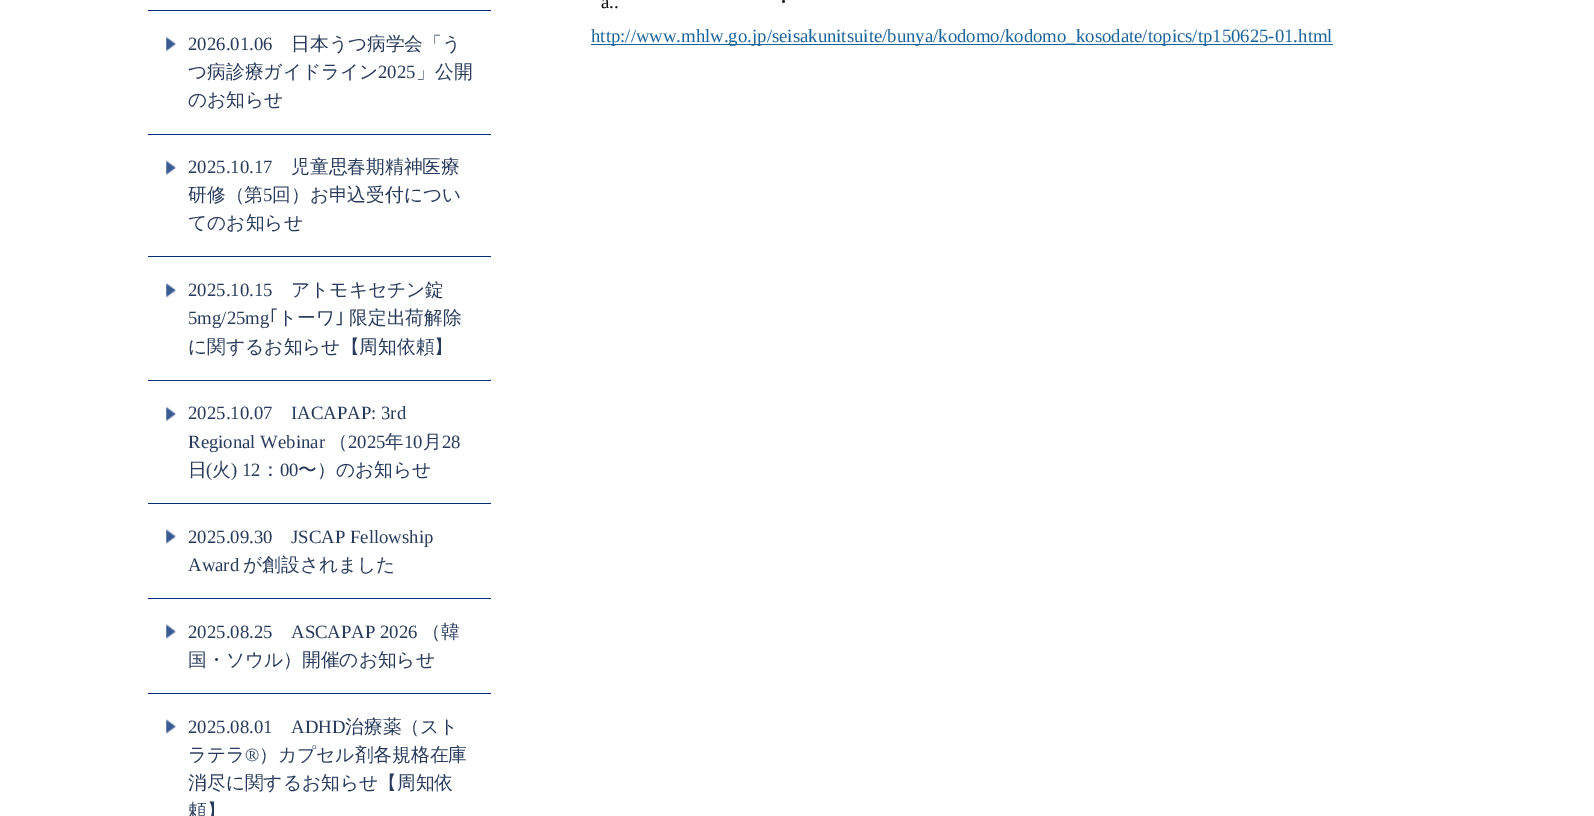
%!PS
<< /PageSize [1594 816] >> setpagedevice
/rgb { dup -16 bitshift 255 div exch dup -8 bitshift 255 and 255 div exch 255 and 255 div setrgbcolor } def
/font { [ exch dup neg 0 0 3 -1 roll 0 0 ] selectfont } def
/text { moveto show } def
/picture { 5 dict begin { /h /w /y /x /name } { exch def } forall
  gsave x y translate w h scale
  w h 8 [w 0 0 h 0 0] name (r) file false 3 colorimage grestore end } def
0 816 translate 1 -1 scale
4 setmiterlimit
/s1 { /LiberationSerif-Regular 18.75 font 16#101010 rgb } def
/s2 { /WenQuanYiZenHei-Medium 18.75 font 16#101010 rgb } def
/s3 { /LiberationSerif-Regular 18.75 font 16#1C649C rgb } def
/s4 { /LiberationSerif-Regular 18.75 font 16#283B5C rgb } def
/s5 { /WenQuanYiZenHei-Medium 18.75 font 16#283B5C rgb } def
/s6 { /IPAPGothic-Regular 18.75 font 16#283B5C rgb } def
16#FFFFFF rgb
0 0 1594 816 rectfill
s1
(a..) 601 8 text
s2
(・) 774 8 text
16#1C649C rgb
591 44 742 1 rectfill
s3
(http://www.mhlw.go.jp/seisakunitsuite/bunya/kodomo/kodomo_kosodate/topics/tp150625-01.html) 591 42 text
16#022E78 rgb
148 10 343 1 rectfill
(pic1.raw) 166 36 11 16 picture
s4
(2026.01.06) 188 50 text
s5
(日本うつ病学会「う) 291 50 text
(つ病診療ガイドライン) 188 78 text
s4
(2025) 378 78 text
s5
(」公開) 416 78 text
(のお知らせ) 188 106 text
16#022E78 rgb
148 134 343 1 rectfill
(pic2.raw) 166 160 11 16 picture
s4
(2025.10.17) 188 173 text
s5
(児童思春期精神医療) 291 173 text
(研修（第) 188 201 text
s4
(5) 263 201 text
s5
(回）お申込受付につい) 272 201 text
(てのお知らせ) 188 229 text
16#022E78 rgb
148 256 343 1 rectfill
(pic3.raw) 166 282 11 16 picture
s4
(2025.10.15) 188 296 text
s5
(アトモキセチン錠) 291 296 text
s4
(5mg/25mg) 188 324 text
s6
(｢) 269 324 text
s5
(トーワ) 278 324 text
s6
(｣) 335 324 text
s5
(限定出荷解除) 349 324 text
(に関するお知らせ【周知依頼】) 188 353 text
16#022E78 rgb
148 380 343 1 rectfill
(pic1.raw) 166 406 11 16 picture
s4
(2025.10.07) 188 419 text
(IACAPAP: 3rd) 291 419 text
(Regional Webinar) 188 448 text
s5
(（) 329 448 text
s4
(2025) 348 448 text
s5
(年) 385 448 text
s4
(10) 404 448 text
s5
(月) 423 448 text
s4
(28) 442 448 text
s5
(日) 188 476 text
s4
(\() 206 476 text
s5
(火) 212 476 text
s4
(\) 12) 231 476 text
s5
(：) 261 476 text
s4
(00) 280 476 text
s5
(〜）のお知らせ) 298 476 text
16#022E78 rgb
148 503 343 1 rectfill
(pic4.raw) 166 529 11 15 picture
s4
(2025.09.30) 188 543 text
(JSCAP Fellowship) 291 543 text
(Award) 188 571 text
s5
(が創設されました) 243 571 text
16#022E78 rgb
148 598 343 1 rectfill
(pic4.raw) 166 624 11 15 picture
s4
(2025.08.25) 188 638 text
(ASCAPAP 2026) 291 638 text
s5
(（韓) 422 638 text
(国・ソウル）開催のお知らせ) 188 666 text
16#022E78 rgb
148 693 343 1 rectfill
(pic4.raw) 166 719 11 15 picture
s4
(2025.08.01) 188 733 text
(ADHD) 291 733 text
s5
(治療薬（スト) 345 733 text
(ラテラ) 188 761 text
s4
(®) 245 761 text
s5
(）カプセル剤各規格在庫) 259 761 text
(消尽に関するお知らせ【周知依) 188 789 text
(頼】) 188 817 text
showpage
